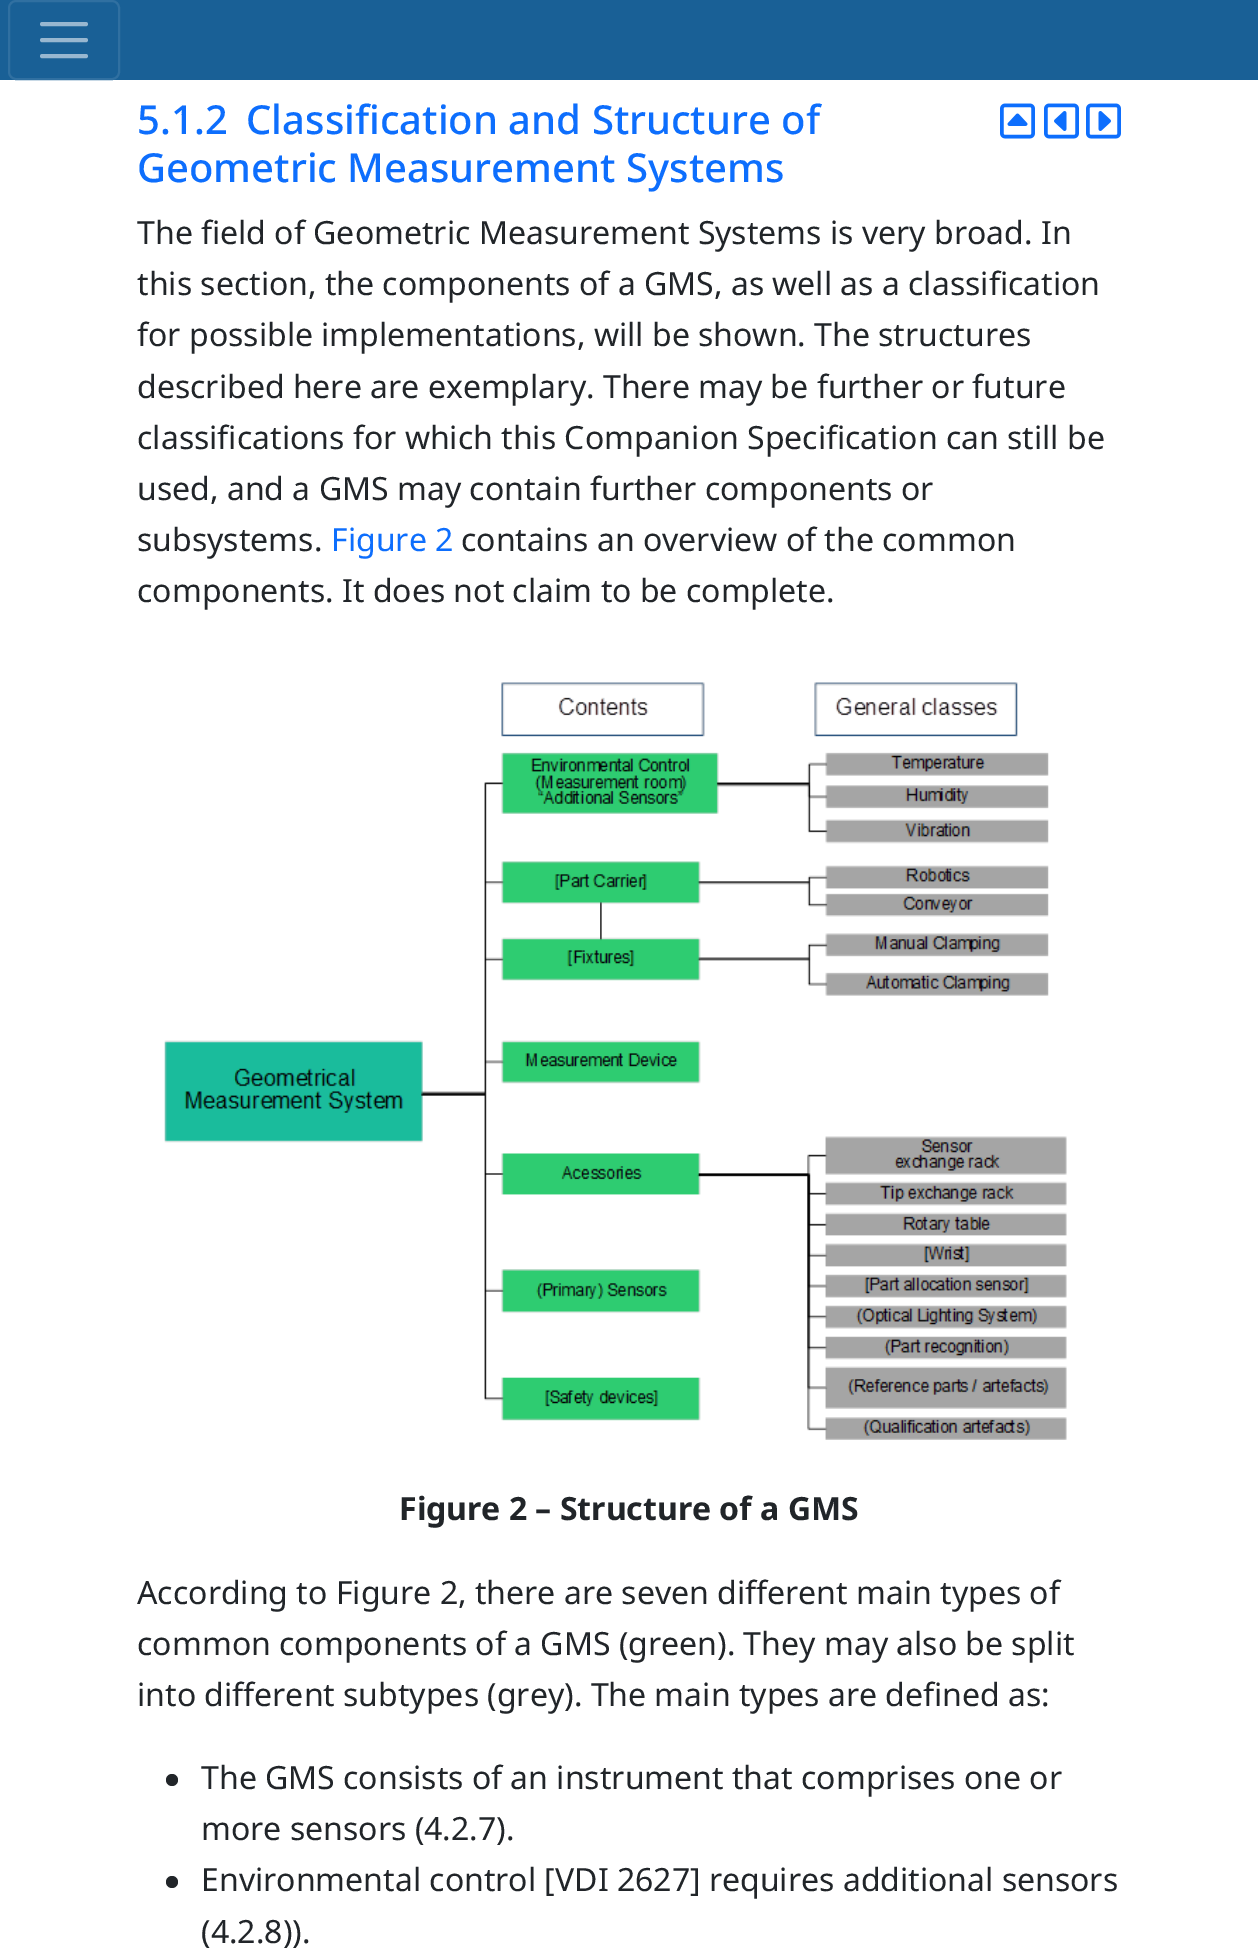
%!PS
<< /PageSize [1258 1958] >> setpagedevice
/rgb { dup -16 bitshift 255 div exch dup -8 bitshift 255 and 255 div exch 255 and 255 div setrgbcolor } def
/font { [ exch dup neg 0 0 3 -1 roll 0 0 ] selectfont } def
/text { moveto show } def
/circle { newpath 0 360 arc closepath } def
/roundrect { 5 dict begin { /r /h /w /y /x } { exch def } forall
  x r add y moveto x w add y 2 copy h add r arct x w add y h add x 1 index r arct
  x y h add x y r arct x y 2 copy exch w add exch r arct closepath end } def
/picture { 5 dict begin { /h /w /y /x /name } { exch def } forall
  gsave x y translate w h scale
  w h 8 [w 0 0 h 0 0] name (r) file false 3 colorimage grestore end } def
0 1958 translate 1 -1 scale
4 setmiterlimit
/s1 { /NotoSans-Medium 40 font 16#0D6EFD rgb } def
/s2 { /NotoSans-Regular 32 font 16#212529 rgb } def
/s3 { /NotoSans-Regular 32 font 16#0D6EFD rgb } def
/s4 { /NotoSans-Bold 32 font 16#212529 rgb } def
16#FFFFFF rgb
0 0 1258 1958 rectfill
16#196096 rgb
0 0 1258 80 rectfill
16#3070A1 rgb
2 setlinewidth
9 1 110 78 7 roundrect stroke
16#98B7D0 rgb
4 setlinewidth
1 setlinecap
42 24 moveto 86 24 lineto 42 40 moveto 86 40 lineto 42 56 moveto 86 56 lineto stroke
s1
(5.1.2) 137 134 text
(Classification and Structure of) 246 134 text
(Geometric Measurement Systems) 137 182 text
(pic1.raw) 1000 103 35 36 picture
(pic2.raw) 1044 103 35 36 picture
(pic3.raw) 1086 103 35 36 picture
s2
(The field of Geometric Measurement Systems is very broad. In) 137 244 text
(this section, the components of a GMS, as well as a classification) 137 295 text
(for possible implementations, will be shown. The structures) 137 346 text
(described here are exemplary. There may be further or future) 137 398 text
(classifications for which this Companion Specification can still be) 137 449 text
(used, and a GMS may contain further components or) 137 500 text
(subsystems.) 137 551 text
s3
(Figure 2) 331 551 text
s2
(contains an overview of the common) 461 551 text
(components. It does not claim to be complete.) 137 602 text
(pic4.raw) 164 682 903 758 picture
s4
(Figure 2 – Structure of a GMS) 399 1520 text
s2
(According to Figure 2, there are seven different main types of) 137 1604 text
(common components of a GMS \(green\). They may also be split) 137 1655 text
(into different subtypes \(grey\). The main types are defined as:) 137 1706 text
172 1780 6 circle fill
(The GMS consists of an instrument that comprises one or) 201 1789 text
(more sensors \(4.2.7\).) 201 1840 text
172 1882 6 circle fill
(Environmental control [VDI 2627] requires additional sensors) 201 1891 text
(\(4.2.8\)\).) 201 1943 text
showpage
